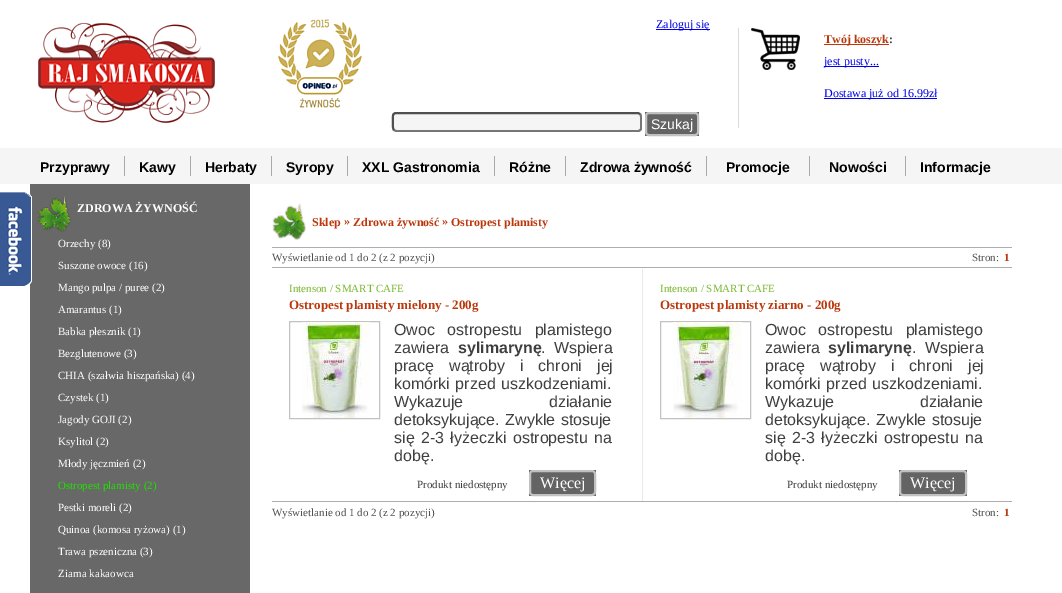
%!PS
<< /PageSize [1062 593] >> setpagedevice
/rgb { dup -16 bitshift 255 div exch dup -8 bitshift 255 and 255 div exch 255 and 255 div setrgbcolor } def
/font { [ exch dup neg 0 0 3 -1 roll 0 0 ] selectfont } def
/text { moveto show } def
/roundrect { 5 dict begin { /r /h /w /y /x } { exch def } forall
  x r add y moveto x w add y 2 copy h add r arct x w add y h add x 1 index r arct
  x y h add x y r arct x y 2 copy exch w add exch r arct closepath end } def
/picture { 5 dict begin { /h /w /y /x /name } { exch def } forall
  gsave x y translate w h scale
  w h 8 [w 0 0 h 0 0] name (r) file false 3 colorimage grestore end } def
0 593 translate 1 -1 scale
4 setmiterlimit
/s1 { /LiberationSerif-Regular 12 font 16#0000EE rgb } def
/s2 { /LiberationSans-Regular 14 font 16#FFFFFF rgb } def
/s3 { /LiberationSerif-Bold 12 font 16#BC380C rgb } def
/s4 { /LiberationSerif-Bold 12 font 16#3F3F3F rgb } def
/s5 { /LiberationSans-Bold 14 font 16#000000 rgb } def
/s6 { /LiberationSerif-Bold 12 font 16#FFFFFF rgb } def
/s7 { /LiberationSerif-Regular 11 font 16#FFFFFF rgb } def
/s8 { /LiberationSerif-Regular 11 font 16#1FE200 rgb } def
/s9 { /LiberationSerif-Regular 11 font 16#505050 rgb } def
/s10 { /LiberationSerif-Bold 11 font 16#BC380C rgb } def
/s11 { /LiberationSerif-Regular 11 font 16#7AB82F rgb } def
/s12 { /LiberationSerif-Bold 13 font 16#BC380C rgb } def
/s13 { /LiberationSans-Regular 16 font 16#3F3F3F rgb } def
/s14 { /LiberationSans-Bold 16 font 16#3F3F3F rgb } def
/s15 { /LiberationSerif-Regular 11 font 16#3F3F3F rgb } def
/s16 { /LiberationSerif-Regular 16 font 16#FFFFFF rgb } def
16#FFFFFF rgb
0 0 1062 593 rectfill
(pic1.raw) 38 23 177 100 picture
(pic2.raw) 278 19 84 89 picture
16#0000EE rgb
656 29 54 1 rectfill
s1
(Zaloguj się) 656 28 text
16#F5F5F5 rgb
392 112 250 20 4 roundrect fill
gsave
372 112 270 20 rectclip
16#767676 rgb
2 setlinewidth
640 114 moveto 642 115.5 641 126 641 128.5 curveto 641 129.5 640 130.5 638.5 131 curveto 396 131 lineto 394 130 lineto stroke
grestore
16#4F4F4F rgb
2 setlinewidth
394 130 moveto 392 128.5 393 118 393 115.5 curveto 393 114.5 394 113.5 395.5 113 curveto 638 113 lineto 640 114 lineto stroke
16#646464 rgb
645 112 54 24 rectfill
16#C3C0C0 rgb
646 113 52 22 3 roundrect stroke
s2
(Szukaj) 651 129 text
16#DADADA rgb
738 28 1 100 rectfill
(pic3.raw) 751 28 49 42 picture
16#BC380C rgb
824 44 65 1 rectfill
s3
(Twój koszyk) 824 43 text
s4
(:) 889 43 text
16#0000EE rgb
824 66 55 1 rectfill
s1
(jest pusty...) 824 65 text
824 98 113 1 rectfill
(Dostawa już od 16.99zł) 824 97 text
16#F5F5F5 rgb
0 148 1062 36 rectfill
s5
(Przyprawy) 40 172 text
16#AAAAAA rgb
124 156 1 20 rectfill
s5
(Kawy) 139 172 text
16#AAAAAA rgb
190 156 1 20 rectfill
s5
(Herbaty) 205 172 text
16#AAAAAA rgb
271 156 1 20 rectfill
s5
(Syropy) 286 172 text
16#AAAAAA rgb
347 156 1 20 rectfill
s5
(XXL Gastronomia) 362 172 text
16#AAAAAA rgb
494 156 1 20 rectfill
s5
(Różne) 509 172 text
16#AAAAAA rgb
565 156 1 20 rectfill
s5
(Zdrowa żywność) 580 172 text
16#AAAAAA rgb
706 156 1 20 rectfill
s5
(Promocje) 726 172 text
16#AAAAAA rgb
809 156 1 20 rectfill
s5
(Nowości) 829 172 text
16#AAAAAA rgb
905 156 1 20 rectfill
s5
(Informacje) 920 172 text
16#686868 rgb
30 184 220 409 rectfill
(pic4.raw) 0 192 32 94 picture
(pic5.raw) 37 196 34 36 picture
s6
(ZDROWA ŻYWNOŚĆ) 77 212 text
s7
(Orzechy \(8\)) 58 247 text
(Suszone owoce \(16\)) 58 269 text
(Mango pulpa / puree \(2\)) 58 291 text
(Amarantus \(1\)) 58 313 text
(Babka płesznik \(1\)) 58 335 text
(Bezglutenowe \(3\)) 58 357 text
(CHIA \(szałwia hiszpańska\) \(4\)) 58 379 text
(Czystek \(1\)) 58 401 text
(Jagody GOJI \(2\)) 58 423 text
(Ksylitol \(2\)) 58 445 text
(Młody jęczmień \(2\)) 58 467 text
s8
(Ostropest plamisty \(2\)) 58 489 text
s7
(Pestki moreli \(2\)) 58 511 text
(Quinoa \(komosa ryżowa\) \(1\)) 58 533 text
(Trawa pszeniczna \(3\)) 58 555 text
(Ziarna kakaowca) 58 577 text
16#ADADAD rgb
272 247 740 1 rectfill
(pic6.raw) 272 203 34 37 picture
s3
(Sklep) 312 226 text
(») 344 225 text
(Zdrowa żywność) 353 226 text
(») 442 225 text
(Ostropest plamisty) 451 226 text
s9
(Wyświetlanie od 1 do 2 \(z 2 pozycji\)) 272 261 text
(Stron:) 972 261 text
s10
(1) 1004 261 text
16#ADADAD rgb
272 267 740 1 rectfill
s11
(Intenson / SMART CAFE) 289 292 text
s12
(Ostropest plamisty mielony - 200g) 289 309 text
16#C2C2C2 rgb
1 setlinewidth
289.5 321.5 90 97 rectstroke
(pic7.raw) 302 322 68 96 picture
/LiberationSans-Regular 16 font
16#3F3F3F rgb
394 335 moveto 8 0 32 (Owoc ostropestu plamistego) widthshow
(zawiera) 394 353 text
s14
(sylimarynę) 458 353 text
/LiberationSans-Regular 16 font
541 353 moveto 4 0 32 (. Wspiera) widthshow
394 371 moveto 10.5 0 32 (pracę wątroby i chroni jej) widthshow
394 389 moveto 1 0 32 (komórki przed uszkodzeniami.) widthshow
394 407 moveto 81 0 32 (Wykazuje działanie) widthshow
394 425 moveto 1 0 32 (detoksykujące. Zwykle stosuje) widthshow
394 443 moveto 2 0 32 (się 2-3 łyżeczki ostropestu na) widthshow
(dobę.) 394 461 text
s15
(Produkt niedostępny) 417 488 text
16#646464 rgb
529 470 67 26 rectfill
16#C3C0C0 rgb
2 setlinewidth
530 471 65 24 3 roundrect stroke
s16
(Więcej) 540 488 text
16#E9E9E9 rgb
642 269 1 232 rectfill
s11
(Intenson / SMART CAFE) 660 292 text
s12
(Ostropest plamisty ziarno - 200g) 660 309 text
16#C2C2C2 rgb
1 setlinewidth
660.5 321.5 90 97 rectstroke
(pic8.raw) 673 322 69 96 picture
/LiberationSans-Regular 16 font
16#3F3F3F rgb
765 335 moveto 8 0 32 (Owoc ostropestu plamistego) widthshow
(zawiera) 765 353 text
s14
(sylimarynę) 828 353 text
/LiberationSans-Regular 16 font
912 353 moveto 4 0 32 (. Wspiera) widthshow
765 371 moveto 10.5 0 32 (pracę wątroby i chroni jej) widthshow
765 389 moveto 1 0 32 (komórki przed uszkodzeniami.) widthshow
765 407 moveto 81 0 32 (Wykazuje działanie) widthshow
765 425 moveto 1 0 32 (detoksykujące. Zwykle stosuje) widthshow
765 443 moveto 2 0 32 (się 2-3 łyżeczki ostropestu na) widthshow
(dobę.) 765 461 text
s15
(Produkt niedostępny) 787 488 text
16#646464 rgb
899 470 68 26 rectfill
16#C3C0C0 rgb
2 setlinewidth
900 471 66 24 3 roundrect stroke
s16
(Więcej) 910 488 text
16#ADADAD rgb
272 501 740 1 rectfill
s9
(Wyświetlanie od 1 do 2 \(z 2 pozycji\)) 272 516 text
(Stron:) 972 516 text
s10
(1) 1004 516 text
showpage
